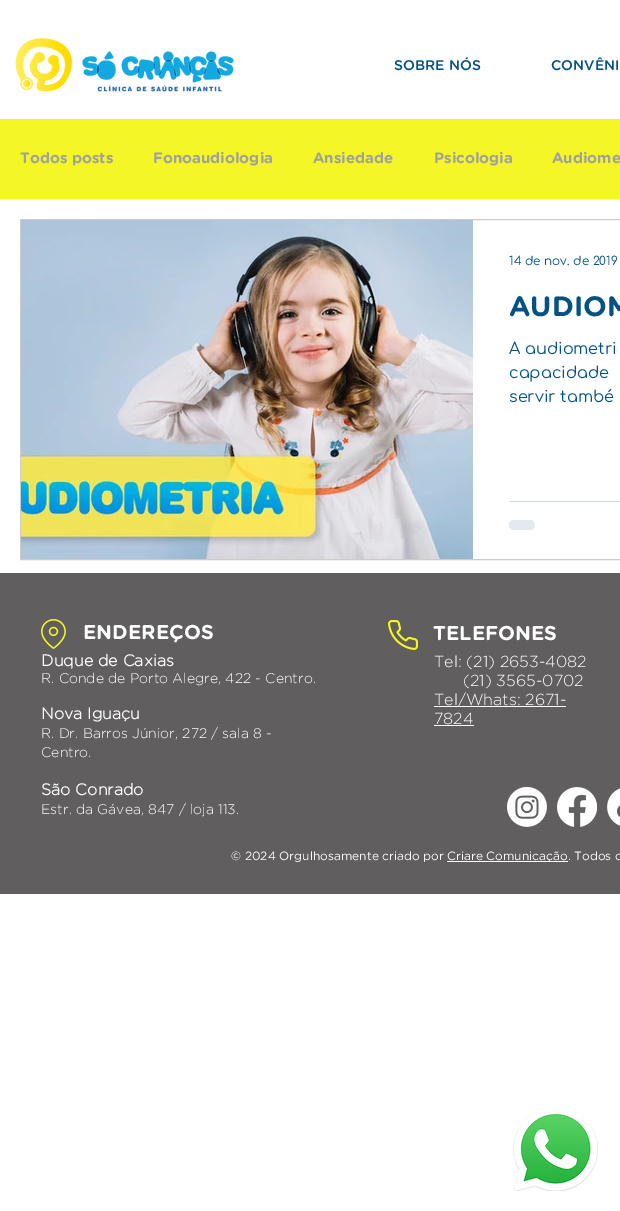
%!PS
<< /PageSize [620 1211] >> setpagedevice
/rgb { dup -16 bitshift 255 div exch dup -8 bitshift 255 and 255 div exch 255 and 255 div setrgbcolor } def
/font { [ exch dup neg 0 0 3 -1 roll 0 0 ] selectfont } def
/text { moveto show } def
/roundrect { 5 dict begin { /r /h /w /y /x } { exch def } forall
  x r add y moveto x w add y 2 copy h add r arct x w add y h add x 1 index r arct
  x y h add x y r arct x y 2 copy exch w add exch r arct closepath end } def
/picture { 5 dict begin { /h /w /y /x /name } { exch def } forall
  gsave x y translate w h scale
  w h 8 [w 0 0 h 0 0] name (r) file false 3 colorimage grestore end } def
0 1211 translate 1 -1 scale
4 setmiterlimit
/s1 { /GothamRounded-Medium 14 font 16#045184 rgb } def
/s2 { /GothamRounded-Bold 15 font 16#A0A09F rgb } def
/s3 { /Comfortaa-Regular 12 font 16#045184 rgb } def
/s4 { /GothamRounded-Bold 28 font 16#045184 rgb } def
/s5 { /Comfortaa-Regular 16 font 16#045184 rgb } def
/s6 { /GothamRounded-Bold 20 font 16#FFFFFF rgb } def
/s7 { /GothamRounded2-Bold 16 font 16#FFFFFF rgb } def
/s8 { /GothamRounded-Light 14 font 16#FFFFFF rgb } def
/s9 { /GothamRounded-Light 16 font 16#FFFFFF rgb } def
/s10 { /GothamRounded-Regular 12 font 16#FFFFFF rgb } def
16#FFFFFF rgb
0 0 620 1211 rectfill
(pic1.raw) 15 38 219 54 picture
s1
(SOBRE NÓS) 394 70 text
(CONVÊNI) 551 70 text
16#F4F725 rgb
0 119 620 80 rectfill
s2
(Todos posts) 20 163 text
(Fonoaudiologia) 153 163 text
(Ansiedade) 313 163 text
(Psicologia) 434 163 text
(Audiome) 552 163 text
16#CCCCCC rgb
20.5 219.5 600 340 rectstroke
(pic2.raw) 21 220 452 339 picture
s3
(14 de nov. de 2019) 509 265 text
s4
(AUDIOM) 509 316 text
s5
(A audiometri) 509 354 text
(capacidade) 509 378 text
(servir també) 509 402 text
16#CDDCE6 rgb
509 501 111 1 rectfill
16#E1EAF0 rgb
509 520 26 10 5 roundrect fill
16#605E5E rgb
0 573 620 321 rectfill
(pic3.raw) 41 619 25 30 picture
s6
(ENDEREÇOS) 83 639 text
s7
(Duque de Caxias) 41 666 text
s8
(R. Conde de Porto Alegre, 422 - Centro.) 41 683 text
s7
(Nova Iguaçu) 41 719 text
s8
(R. Dr. Barros Júnior, 272 / sala 8 -) 41 738 text
(Centro.) 41 757 text
s7
(São Conrado) 41 795 text
s8
(Estr. da Gávea, 847 / loja 113.) 41 814 text
(pic4.raw) 388 620 30 30 picture
s6
(TELEFONES) 433 640 text
s9
(Tel: \(21\) 2653-4082) 434 667 text
(\(21\) 3565-0702) 463 686 text
434 706 132 1 rectfill
(Tel/Whats: 2671-) 434 705 text
(7824) 434 724 text
434 725 40 1 rectfill
(pic5.raw) 507 787 40 40 picture
(pic6.raw) 557 787 40 40 picture
(pic7.raw) 607 788 13 38 picture
s10
(© 2024 Orgulhosamente criado por) 231 860 text
447 861 121 1 rectfill
(Criare Comunicação. Todos o) 447 860 text
(pic8.raw) 513 1111 85 80 picture
showpage
